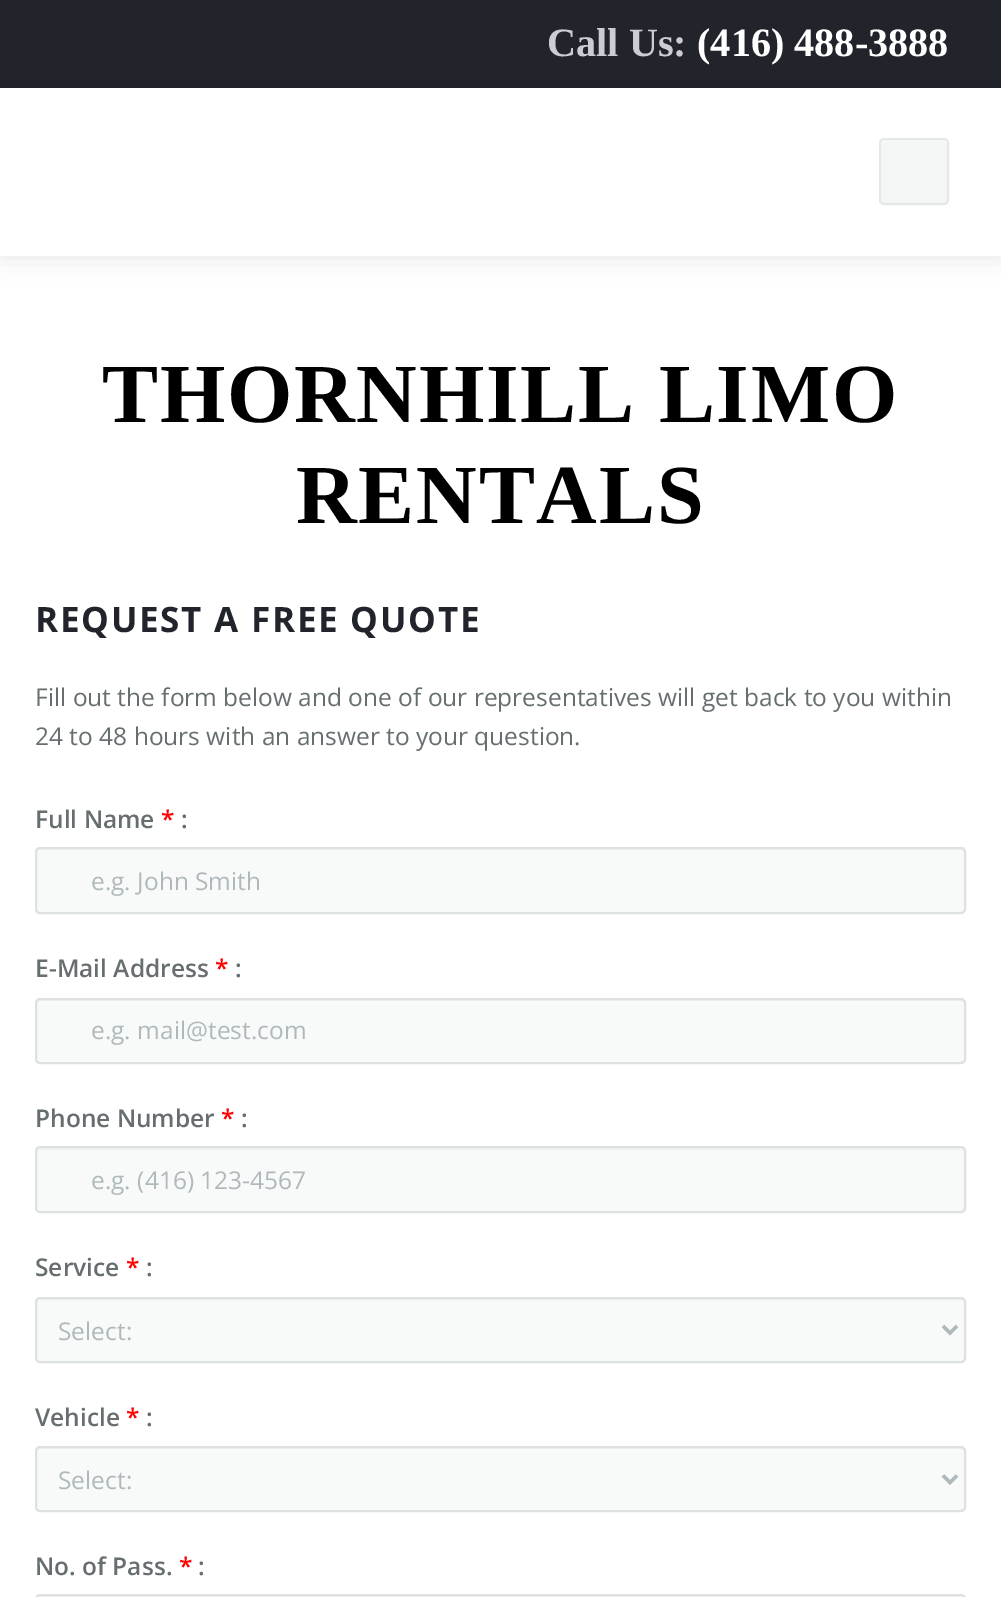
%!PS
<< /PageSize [1001 1597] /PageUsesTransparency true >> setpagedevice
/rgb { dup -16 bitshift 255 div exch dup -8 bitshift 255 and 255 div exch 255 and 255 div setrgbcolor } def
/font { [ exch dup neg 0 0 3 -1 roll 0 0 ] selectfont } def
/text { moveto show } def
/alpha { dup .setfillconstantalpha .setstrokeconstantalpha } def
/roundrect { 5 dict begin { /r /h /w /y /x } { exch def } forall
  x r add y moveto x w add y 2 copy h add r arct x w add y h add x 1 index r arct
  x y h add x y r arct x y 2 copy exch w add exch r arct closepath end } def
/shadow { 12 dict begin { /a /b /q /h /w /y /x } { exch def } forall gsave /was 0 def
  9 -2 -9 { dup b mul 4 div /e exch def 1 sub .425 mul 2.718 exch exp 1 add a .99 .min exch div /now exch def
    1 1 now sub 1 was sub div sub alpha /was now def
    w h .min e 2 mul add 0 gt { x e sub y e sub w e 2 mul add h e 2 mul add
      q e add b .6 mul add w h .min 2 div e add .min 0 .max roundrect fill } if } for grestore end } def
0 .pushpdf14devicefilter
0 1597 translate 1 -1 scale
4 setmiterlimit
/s1 { /LiberationSerif-Bold 40.25 font 16#CCCCD5 rgb } def
/s2 { /LiberationSerif-Bold 40.25 font 16#FFFFFF rgb } def
/s3 { /OpenSans-Regular 24.5 font 16#666E70 rgb } def
/s4 { /OpenSans-SemiBold 24.5 font 16#666E70 rgb } def
/s5 { /OpenSans-SemiBold 24.5 font 16#FF0000 rgb } def
/s6 { /OpenSans-Regular 24.5 font 16#AFB8BB rgb } def
16#FFFFFF rgb
0 0 1001 1597 rectfill
16#21252B rgb
0 0 1001 88 rectfill
s1
(Call Us:) 547 56 text
s2
(\(416\) 488-3888) 697 56 text
16#000000 rgb
0 89 1001 168 0 13 0.1 shadow
16#FFFFFF rgb
0 88 1001 168 rectfill
16#F4F6F6 rgb
879 138 70 67 5 roundrect fill
16#F8FAFA rgb
884 142 moveto 943 142 lineto 945 142 947 143 947 145 curveto 947 138 938 140 933 140 curveto 894 140 lineto 889 140 880 138 880 145 curveto 880 143 882 142 884 142 curveto closepath fill
16#E3E9E9 rgb
2 setlinewidth
880 139 68 65 4 roundrect stroke
/LiberationSerif-Bold 84 font
16#000000 rgb
102 422 moveto 1.75 0 (THORNHILL LIMO) ashow
296 523 moveto 1.75 0 (RENTALS) ashow
/OpenSans-Bold 35 font
16#21252B rgb
35 632 moveto 1.75 0 (REQUEST A FREE QUOTE) ashow
s3
(Fill out the form below and one of our representatives will get back to you within) 35 706 text
(24 to 48 hours with an answer to your question.) 35 745 text
s4
(Full Name) 35 828 text
s5
(*) 161 828 text
s4
(:) 181 828 text
16#F8FAFA rgb
35 847 931 67 5 roundrect fill
16#F1F3F3 rgb
40 850 moveto 961 850 lineto 963 850 964 852 964 854 curveto 964 851 963 849 960 849 curveto 41 849 lineto 38 849 37 851 37 854 curveto 37 852 38 850 40 850 curveto closepath fill
16#DDE1E1 rgb
36 848 929 65 4 roundrect stroke
s6
(e.g. John Smith) 91 890 text
s4
(E-Mail Address) 35 977 text
s5
(*) 215 977 text
s4
(:) 235 977 text
16#F8FAFA rgb
35 998 931 66 5 roundrect fill
16#F1F3F3 rgb
40 1001 moveto 961 1001 lineto 963 1001 964 1003 964 1004 curveto 964 1001 963 999 960 999 curveto 41 999 lineto 38 999 37 1001 37 1004 curveto 37 1003 38 1001 40 1001 curveto closepath fill
16#DDE1E1 rgb
36 999 929 64 4 roundrect stroke
s6
(e.g. mail@test.com) 91 1039 text
s4
(Phone Number) 35 1127 text
s5
(*) 221 1127 text
s4
(:) 241 1127 text
16#F8FAFA rgb
35 1146 931 67 5 roundrect fill
16#F1F3F3 rgb
40 1150 moveto 961 1150 lineto 963 1150 964 1151 964 1153 curveto 964 1150 963 1148 960 1148 curveto 41 1148 lineto 38 1148 37 1150 37 1153 curveto 37 1151 38 1150 40 1150 curveto closepath fill
16#DDE1E1 rgb
36 1147 929 65 4 roundrect stroke
s6
(e.g. \(416\) 123-4567) 91 1189 text
s4
(Service) 35 1276 text
s5
(*) 126 1276 text
s4
(:) 146 1276 text
16#F8FAFA rgb
35 1297 931 66 5 roundrect fill
16#F1F3F3 rgb
40 1300 moveto 961 1300 lineto 963 1300 964 1302 964 1304 curveto 964 1301 963 1299 960 1299 curveto 41 1299 lineto 38 1299 37 1301 37 1304 curveto 37 1302 38 1300 40 1300 curveto closepath fill
16#DDE1E1 rgb
36 1298 929 64 4 roundrect stroke
16#AFB8BB rgb
3.5 setlinewidth
943 1326 moveto 950 1333 lineto 957 1326 lineto stroke
s6
(Select:) 58 1340 text
s4
(Vehicle) 35 1426 text
s5
(*) 126 1426 text
s4
(:) 146 1426 text
16#F8FAFA rgb
35 1446 931 66 5 roundrect fill
16#F1F3F3 rgb
40 1449 moveto 961 1449 lineto 963 1449 964 1451 964 1452 curveto 964 1449 963 1447 960 1447 curveto 41 1447 lineto 38 1447 37 1449 37 1452 curveto 37 1451 38 1449 40 1449 curveto closepath fill
16#DDE1E1 rgb
2 setlinewidth
36 1447 929 64 4 roundrect stroke
16#AFB8BB rgb
3.5 setlinewidth
943 1475.5 moveto 950 1482.5 lineto 957 1475.5 lineto stroke
s6
(Select:) 58 1489 text
s4
(No. of Pass.) 35 1575 text
s5
(*) 179 1575 text
s4
(:) 198 1575 text
16#F8FAFA rgb
35 1594 931 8 5 roundrect fill
16#F1F3F3 rgb
40 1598 moveto 961 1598 lineto 963 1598 964 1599 964 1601 curveto 964 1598 963 1596 960 1596 curveto 41 1596 lineto 38 1596 37 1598 37 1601 curveto 37 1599 38 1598 40 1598 curveto closepath fill
16#DDE1E1 rgb
2 setlinewidth
36 1595 929 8 4 roundrect stroke
.poppdf14devicefilter showpage
